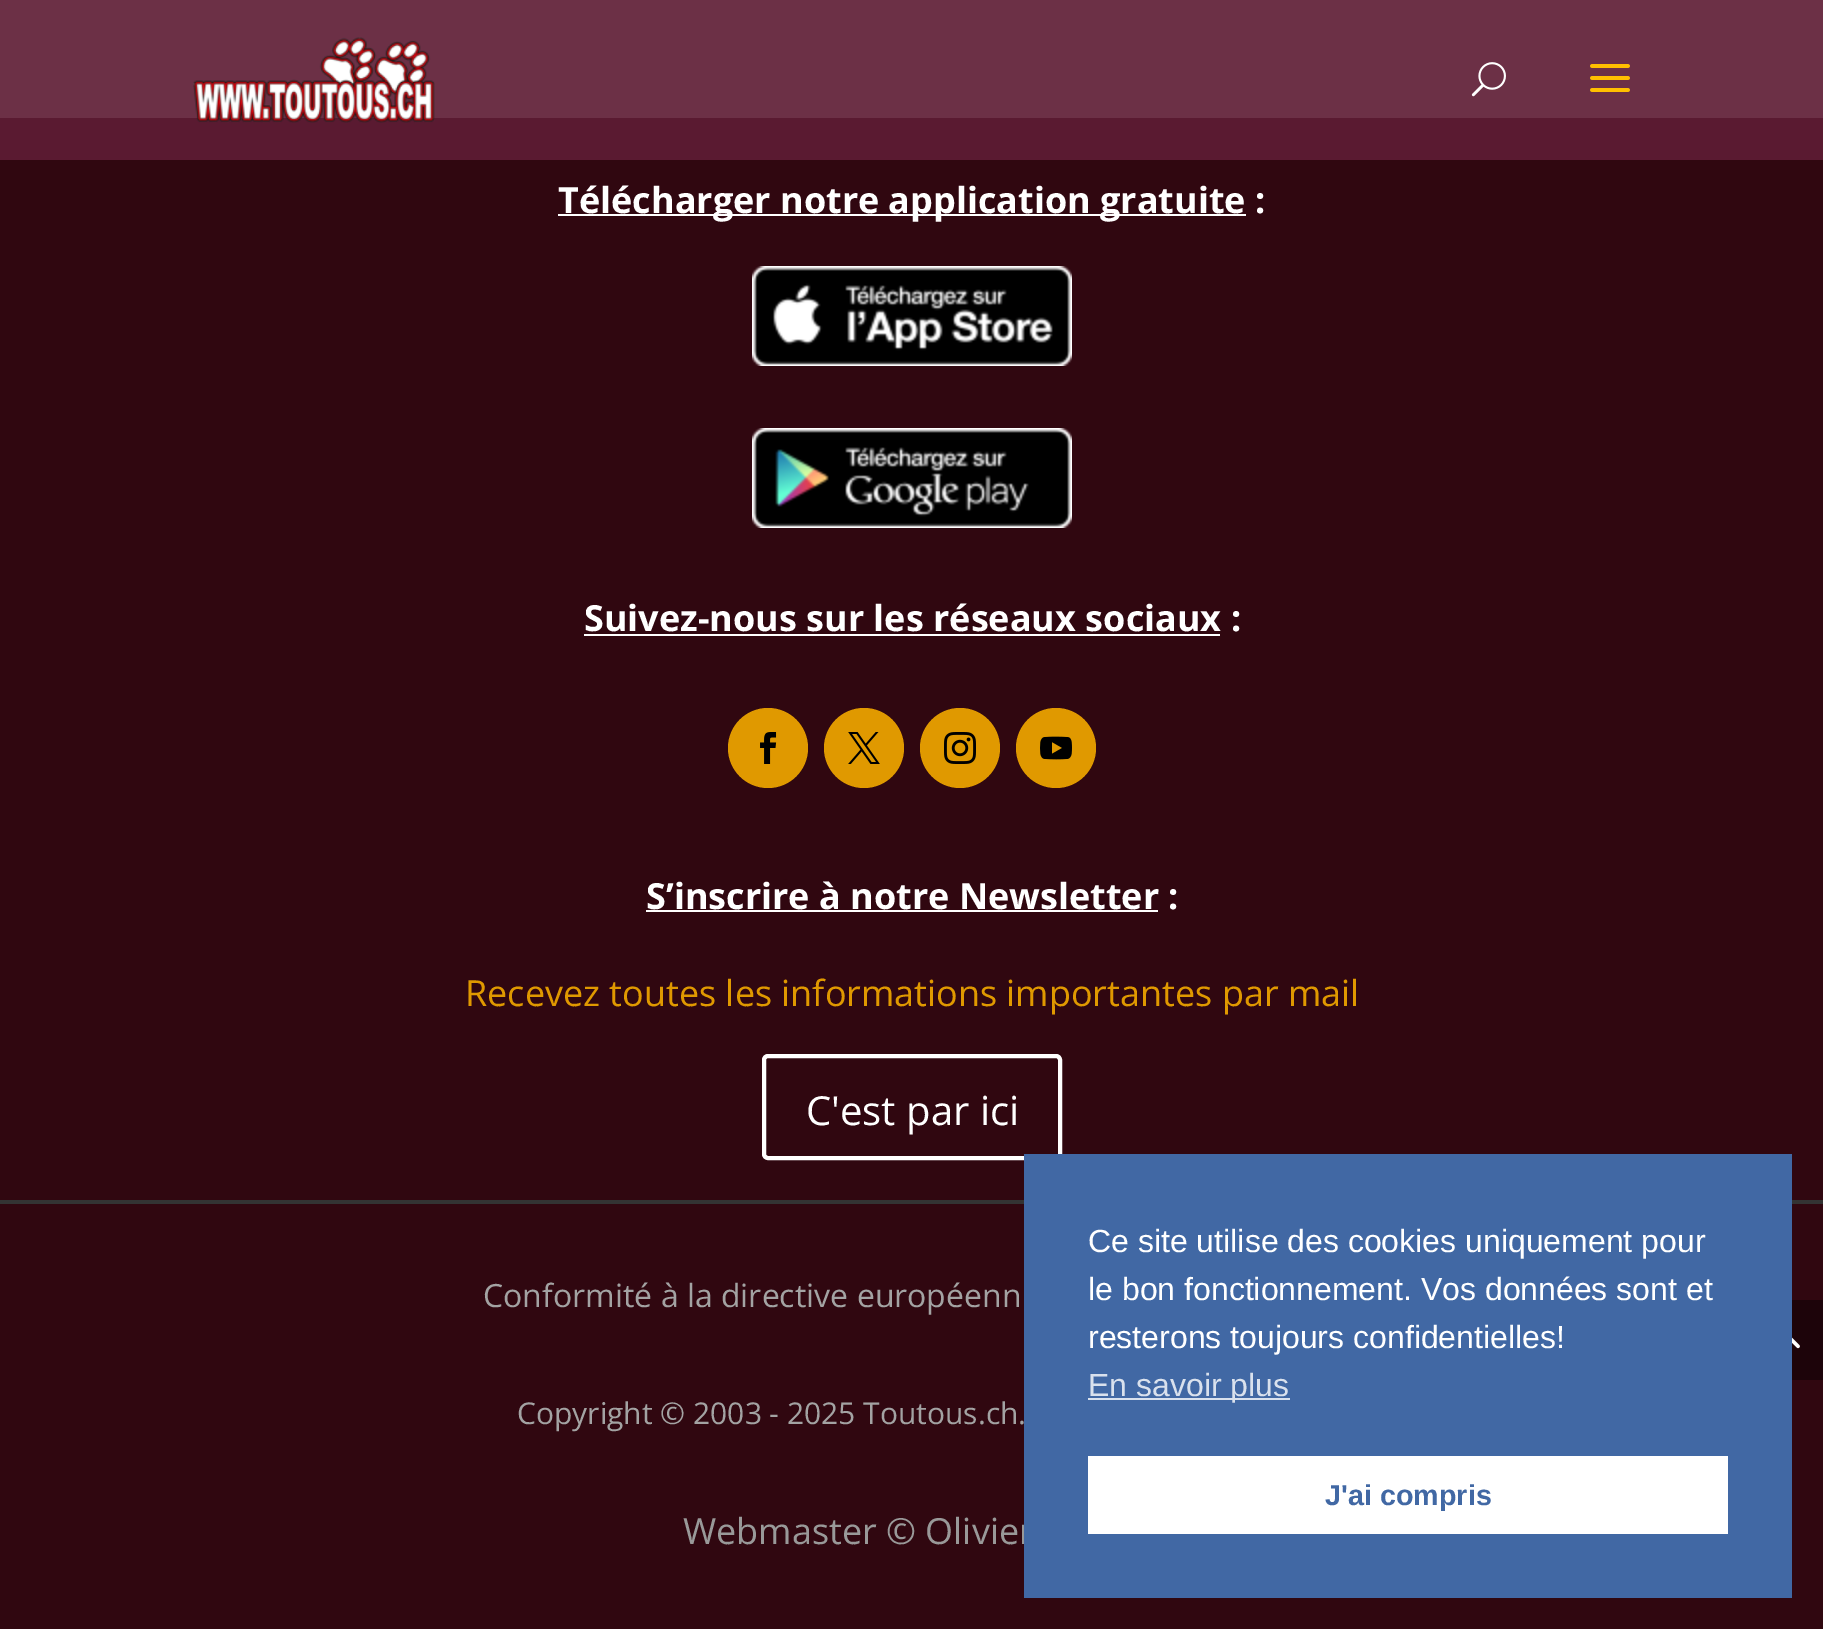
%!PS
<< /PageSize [1823 1629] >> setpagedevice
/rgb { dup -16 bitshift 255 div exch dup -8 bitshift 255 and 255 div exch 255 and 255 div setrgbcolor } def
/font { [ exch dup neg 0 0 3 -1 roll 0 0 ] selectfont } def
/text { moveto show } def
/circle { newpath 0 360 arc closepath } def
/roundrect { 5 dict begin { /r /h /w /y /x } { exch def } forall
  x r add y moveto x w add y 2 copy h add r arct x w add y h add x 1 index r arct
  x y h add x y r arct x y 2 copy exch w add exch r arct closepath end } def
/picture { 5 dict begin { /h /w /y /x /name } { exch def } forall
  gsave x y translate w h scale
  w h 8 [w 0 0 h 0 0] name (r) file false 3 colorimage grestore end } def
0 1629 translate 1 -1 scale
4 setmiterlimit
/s1 { /OpenSans-Bold 36 font 16#FFFFFF rgb } def
/s2 { /OpenSans-Regular 36 font 16#E09900 rgb } def
/s3 { /OpenSans-Regular 40 font 16#FFFFFF rgb } def
/s4 { /OpenSans-Regular 32 font 16#A3A3A3 rgb } def
/s5 { /OpenSans-Regular 30 font 16#A3A3A3 rgb } def
/s6 { /OpenSans-Regular 36 font 16#999999 rgb } def
/s7 { /LiberationSans-Regular 32 font 16#FFFFFF rgb } def
/s8 { /LiberationSans-Regular 32 font 16#D9E1ED rgb } def
/s9 { /LiberationSans-Bold 28.75 font 16#4168A4 rgb } def
16#300710 rgb
0 0 1823 1629 rectfill
16#5A1A31 rgb
0 118 1823 42 rectfill
16#6C3046 rgb
0 0 1823 118 rectfill
(pic1.raw) 193 37 242 86 picture
(pic2.raw) 1471 62 35 35 picture
(pic3.raw) 1590 64 40 28 picture
16#FFFFFF rgb
558 214 688 2 rectfill
s1
(Télécharger notre application gratuite :) 558 213 text
(pic4.raw) 752 266 320 100 picture
(pic5.raw) 752 428 320 100 picture
(Suivez-nous sur les réseaux sociaux :) 584 631 text
584 634 636 2 rectfill
16#E09900 rgb
768 748 40 circle fill
(pic6.raw) 760 732 17 32 picture
864 748 40 circle fill
(pic7.raw) 848 732 32 32 picture
960 748 40 circle fill
(pic8.raw) 944 732 32 32 picture
1056 748 40 circle fill
(pic9.raw) 1040 736 32 24 picture
s1
(S’inscrire à notre Newsletter :) 646 909 text
646 910 512 2 rectfill
s2
(Recevez toutes les informations importantes par mail) 465 1006 text
16#FFFFFF rgb
4 setlinewidth
764 1056 296 102 4 roundrect stroke
s3
(C'est par ici) 806 1125 text
16#333333 rgb
0 1200 1823 4 rectfill
s4
(Conformité à la directive européenn) 483 1307 text
s5
(Copyright © 2003 - 2025 Toutous.ch.) 517 1424 text
s6
(Webmaster © Olivier) 683 1544 text
16#4168A4 rgb
1024 1154 768 444 rectfill
s7
(Ce site utilise des cookies uniquement pour) 1088 1252 text
(le bon fonctionnement. Vos données sont et) 1088 1300 text
(resterons toujours confidentielles!) 1088 1348 text
16#D9E1ED rgb
1088 1398 202 2 rectfill
(En savoir plus) 1088 1396 text
16#FFFFFF rgb
1088 1456 640 78 rectfill
s9
(J'ai compris) 1325 1505 text
16#1D040A rgb
1792 1300 31 80 rectfill
(pic10.raw) 1792 1337 8 12 picture
showpage
